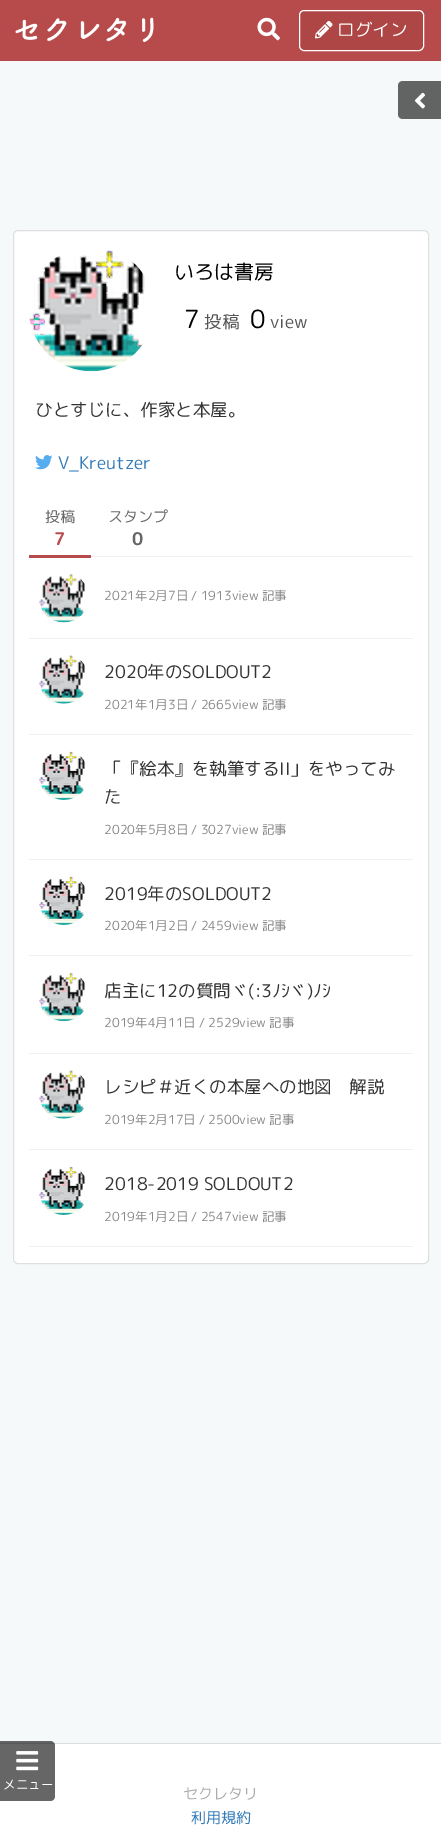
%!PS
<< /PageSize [441 1838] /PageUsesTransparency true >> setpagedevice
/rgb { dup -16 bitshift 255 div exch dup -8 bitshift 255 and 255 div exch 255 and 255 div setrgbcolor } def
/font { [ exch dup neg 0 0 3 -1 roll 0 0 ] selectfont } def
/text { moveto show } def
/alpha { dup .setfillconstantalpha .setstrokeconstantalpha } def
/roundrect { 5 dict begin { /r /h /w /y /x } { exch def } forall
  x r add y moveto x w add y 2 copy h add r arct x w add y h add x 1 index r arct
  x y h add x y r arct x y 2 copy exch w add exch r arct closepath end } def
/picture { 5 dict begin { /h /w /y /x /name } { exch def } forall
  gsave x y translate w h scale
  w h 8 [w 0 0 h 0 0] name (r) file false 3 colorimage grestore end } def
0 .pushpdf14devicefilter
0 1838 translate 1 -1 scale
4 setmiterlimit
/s1 { /RoundedMplus1c-Regular 17.5 font 16#FFFFFF rgb } def
/s2 { /RoundedMplus1c-Regular 20 font 16#000000 rgb } def
/s3 { /RoundedMplus1c-Regular 25 font 16#000000 rgb } def
/s4 { /RoundedMplus1c-Regular 17.5 font 16#555555 rgb } def
/s5 { /RoundedMplus1c-Regular 17.5 font 16#333333 rgb } def
/s6 { /RoundedMplus1c-Regular 17.5 font 16#337AB7 rgb } def
/s7 { /RoundedMplus1c-Regular 15 font 16#666666 rgb } def
/s8 { /RoundedMplus1c-Bold 17.5 font 16#B74A4A rgb } def
/s9 { /RoundedMplus1c-Bold 17.5 font 16#666666 rgb } def
/s10 { /RoundedMplus1c-Regular 12.5 font 16#888888 rgb } def
/s11 { /RoundedMplus1c-Regular 15 font 16#AAAAAA rgb } def
/s12 { /RoundedMplus1c-Regular 15 font 16#337AB7 rgb } def
/s13 { /RoundedMplus1c-Regular 12.5 font 16#FFFFFF rgb } def
16#F6F9FA rgb
0 0 441 1838 rectfill
16#B74A4A rgb
0 0 441 61 rectfill
(pic1.raw) 15 17 139 25 picture
(pic2.raw) 257 17 23 24 picture
16#AE4646 rgb
299.5 10.5 124 40 4.5 roundrect gsave fill grestore
16#FFFFFF rgb
stroke
(pic3.raw) 315 21 18 18 picture
s1
(ログイン) 337 36 text
13.5 230.5 415 1033 4.5 roundrect gsave fill grestore
16#DFDFDF rgb
stroke
(pic4.raw) 29 250 116 122 picture
s2
(いろは書房) 174 279 text
s3
(7) 184 328 text
s4
(投稿) 204 328 text
s3
(0) 250 328 text
s4
(view) 270 328 text
s5
(ひとすじに、作家と本屋。) 35 416 text
(pic5.raw) 35 455 18 15 picture
s6
(V_Kreutzer) 58 469 text
16#B74A4A rgb
29 555 62 3 rectfill
s7
(投稿) 45 522 text
s8
(7) 54 545 text
16#F0F0F0 rgb
91 556 322 1 rectfill
s7
(スタンプ) 108 522 text
s9
(0) 132 545 text
16#F0F0F0 rgb
29 638 384 1 rectfill
(pic6.raw) 39 574 47 49 picture
s10
(2021年2月7日 / 1913view 記事) 104 600 text
16#F0F0F0 rgb
29 734 384 1 rectfill
(pic7.raw) 39 655 47 49 picture
s5
(2020年のSOLDOUT2) 104 678 text
s10
(2021年1月3日 / 2665view 記事) 104 709 text
16#F0F0F0 rgb
29 859 384 1 rectfill
(pic8.raw) 39 751 47 49 picture
s5
(「『絵本』を執筆するII」をやってみ) 104 775 text
(た) 104 803 text
s10
(2020年5月8日 / 3027view 記事) 104 834 text
16#F0F0F0 rgb
29 955 384 1 rectfill
(pic9.raw) 39 876 47 49 picture
s5
(2019年のSOLDOUT2) 104 900 text
s10
(2020年1月2日 / 2459view 記事) 104 930 text
16#F0F0F0 rgb
29 1053 384 1 rectfill
(pic10.raw) 39 972 47 50 picture
s5
(店主に12の質問ヾ\(:3ﾉｼヾ\)ﾉｼ) 104 997 text
s10
(2019年4月11日 / 2529view 記事) 104 1027 text
16#F0F0F0 rgb
29 1149 384 1 rectfill
(pic7.raw) 39 1070 47 49 picture
s5
(レシピ＃近くの本屋への地図　解説) 104 1093 text
s10
(2019年2月17日 / 2500view 記事) 104 1124 text
16#F0F0F0 rgb
29 1246 384 1 rectfill
(pic9.raw) 39 1166 47 49 picture
s5
(2018-2019 SOLDOUT2) 104 1190 text
s10
(2019年1月2日 / 2547view 記事) 104 1221 text
16#FFFFFF rgb
0 1744 441 94 rectfill
16#DDDDDD rgb
0 1743 441 1 rectfill
s11
(セクレタリ) 183 1799 text
s12
(利用規約) 191 1823 text
16#626464 rgb
403 81 moveto 441 81 lineto 441 119 lineto 403 119 lineto 400 119 398 117 398 114 curveto 398 86 lineto 398 83 400 81 403 81 curveto closepath fill
(pic11.raw) 415 92 10 17 picture
0.6 alpha
16#000000 rgb
0 1741 moveto 50 1741 lineto 53 1741 55 1743 55 1746 curveto 55 1796 lineto 55 1799 53 1801 50 1801 curveto 0 1801 lineto closepath fill
1 alpha
(pic12.raw) 16 1751 23 20 picture
s13
(メニュー) 3 1789 text
.poppdf14devicefilter showpage
